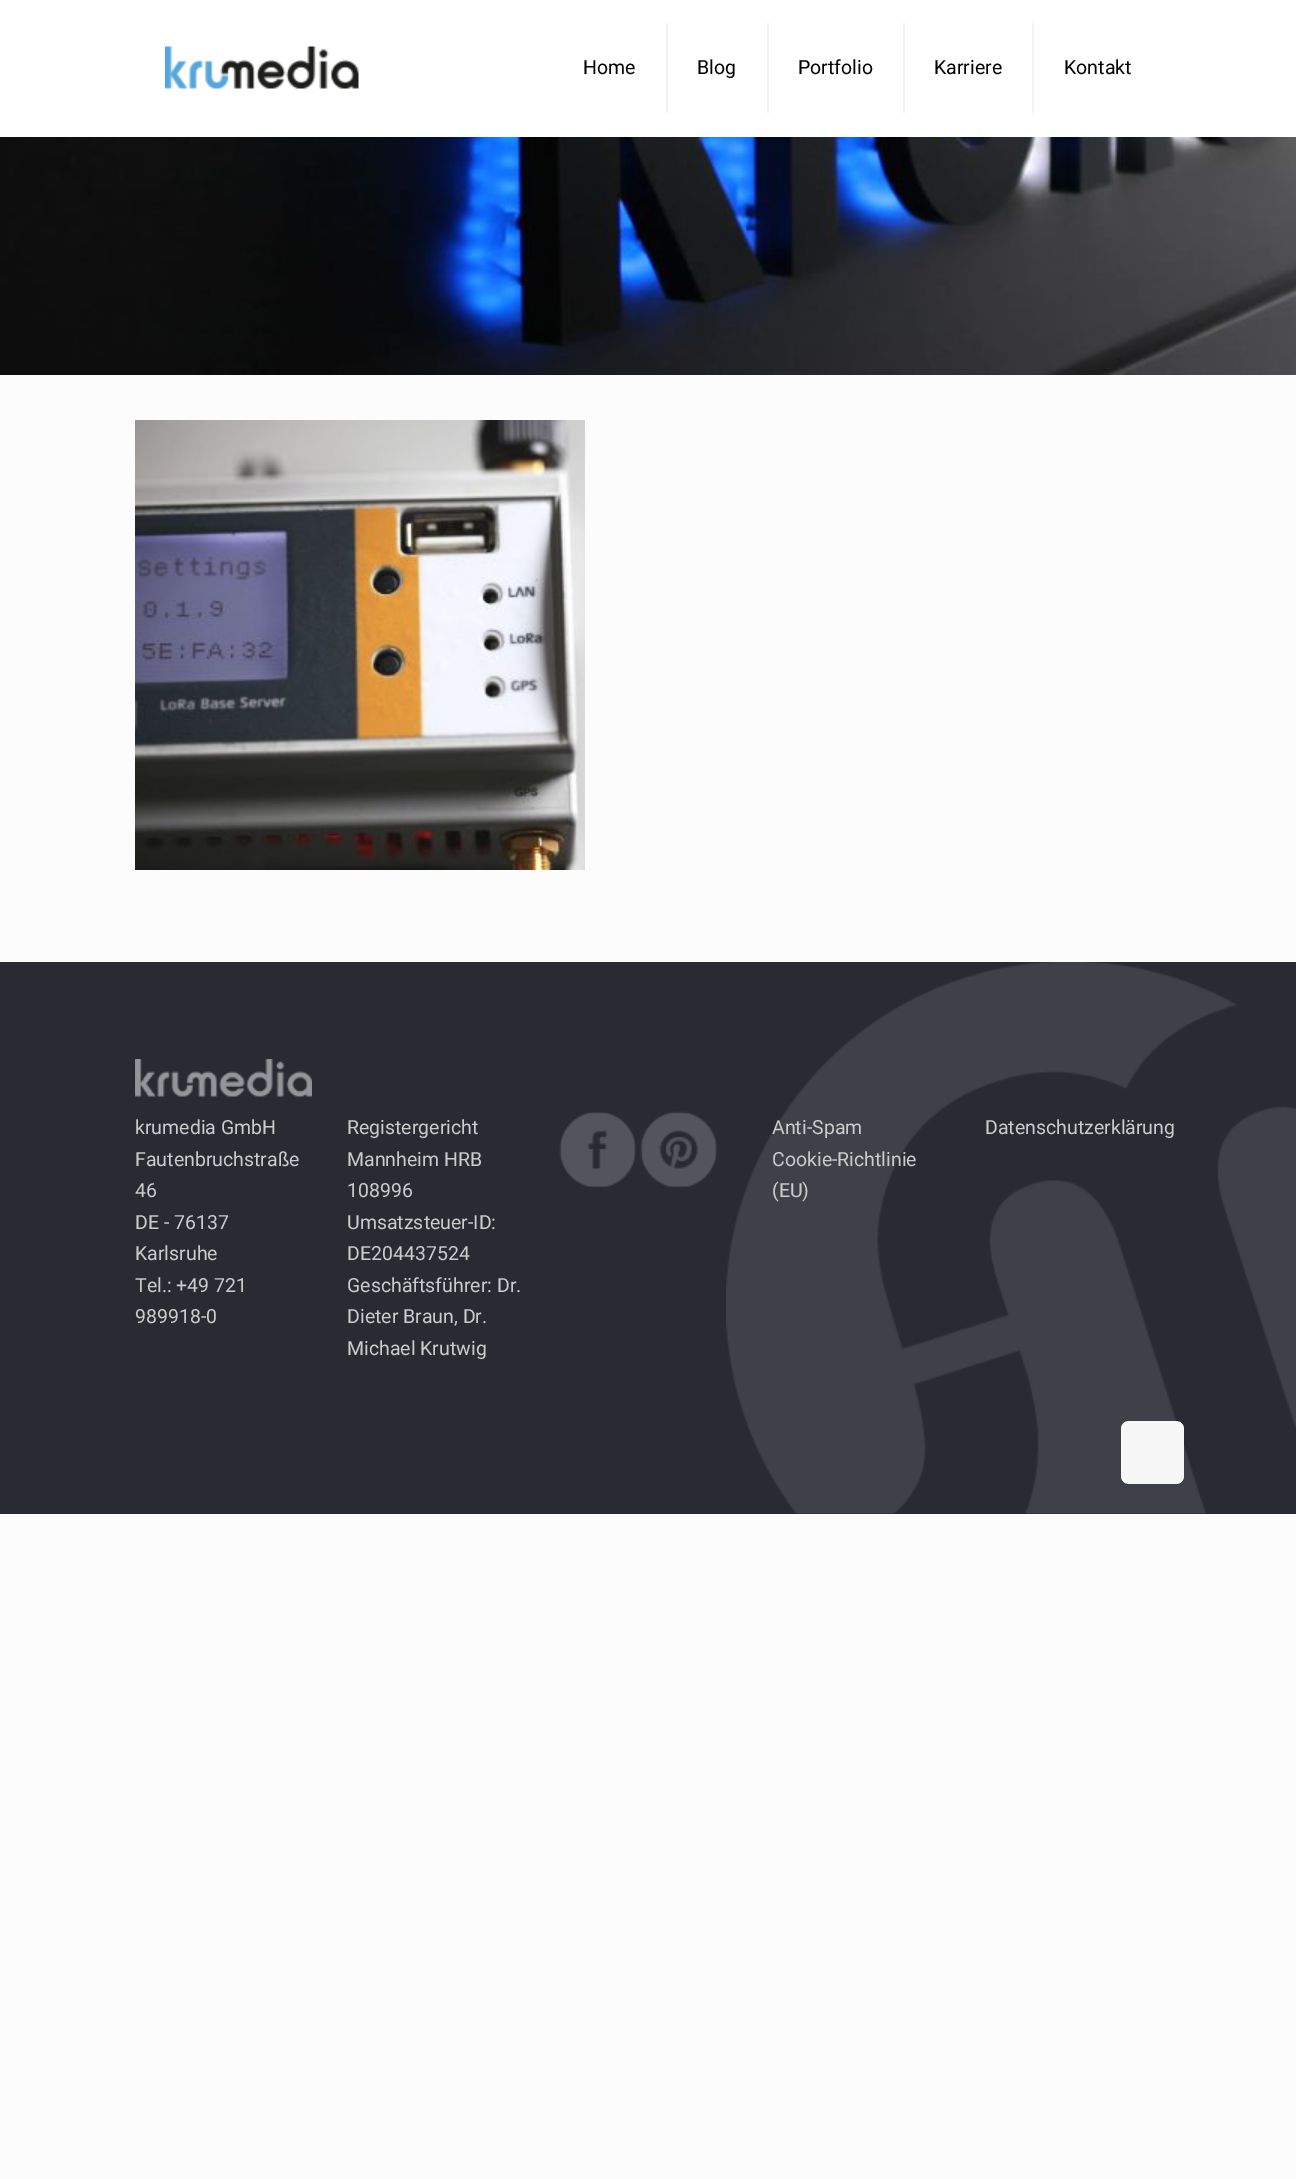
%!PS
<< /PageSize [1296 2179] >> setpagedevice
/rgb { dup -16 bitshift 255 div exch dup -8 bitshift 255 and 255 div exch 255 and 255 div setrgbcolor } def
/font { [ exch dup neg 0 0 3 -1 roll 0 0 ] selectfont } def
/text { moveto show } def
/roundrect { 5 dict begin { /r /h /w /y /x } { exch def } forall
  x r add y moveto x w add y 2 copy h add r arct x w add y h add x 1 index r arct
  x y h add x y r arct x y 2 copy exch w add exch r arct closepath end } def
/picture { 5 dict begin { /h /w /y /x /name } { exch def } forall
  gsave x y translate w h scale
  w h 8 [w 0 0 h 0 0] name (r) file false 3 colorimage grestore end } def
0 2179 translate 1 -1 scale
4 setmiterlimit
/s1 { /Roboto-Regular 19.5 font 16#000000 rgb } def
/s2 { /Roboto-Regular 19.5 font 16#CCCCCC rgb } def
16#FCFCFC rgb
0 0 1296 2179 rectfill
(pic1.raw) 0 137 1296 238 picture
16#FFFFFF rgb
0 0 1296 137 rectfill
(pic2.raw) 165 46 194 43 picture
16#F2F2F2 rgb
666 23 2 90 rectfill
s1
(Home) 583 74 text
16#F2F2F2 rgb
767 23 2 90 rectfill
s1
(Blog) 697 74 text
16#F2F2F2 rgb
903 23 2 90 rectfill
s1
(Portfolio) 798 74 text
16#F2F2F2 rgb
1032 23 2 90 rectfill
s1
(Karriere) 934 74 text
(Kontakt) 1064 74 text
(pic3.raw) 135 420 450 450 picture
16#292B33 rgb
0 962 1296 552 rectfill
(pic4.raw) 726 962 570 552 picture
(pic5.raw) 135 1059 177 38 picture
s2
(krumedia GmbH) 135 1134 text
(Fautenbruchstraße) 135 1166 text
(46) 135 1197 text
(DE - 76137) 135 1229 text
(Karlsruhe) 135 1260 text
(Tel.: +49 721) 135 1292 text
(989918-0) 135 1323 text
(Registergericht) 347 1134 text
(Mannheim HRB) 347 1166 text
(108996) 347 1197 text
(Umsatzsteuer-ID:) 347 1229 text
(DE204437524) 347 1260 text
(Geschäftsführer: Dr.) 347 1292 text
(Dieter Braun, Dr.) 347 1323 text
(Michael Krutwig) 347 1355 text
(pic6.raw) 559 1112 77 76 picture
(pic7.raw) 640 1111 77 77 picture
(Anti-Spam) 772 1134 text
(Cookie-Richtlinie) 772 1166 text
(\(EU\)) 772 1197 text
(Datenschutzerklärung) 985 1134 text
16#F7F7F7 rgb
1121 1421 63 63 8 roundrect fill
showpage
